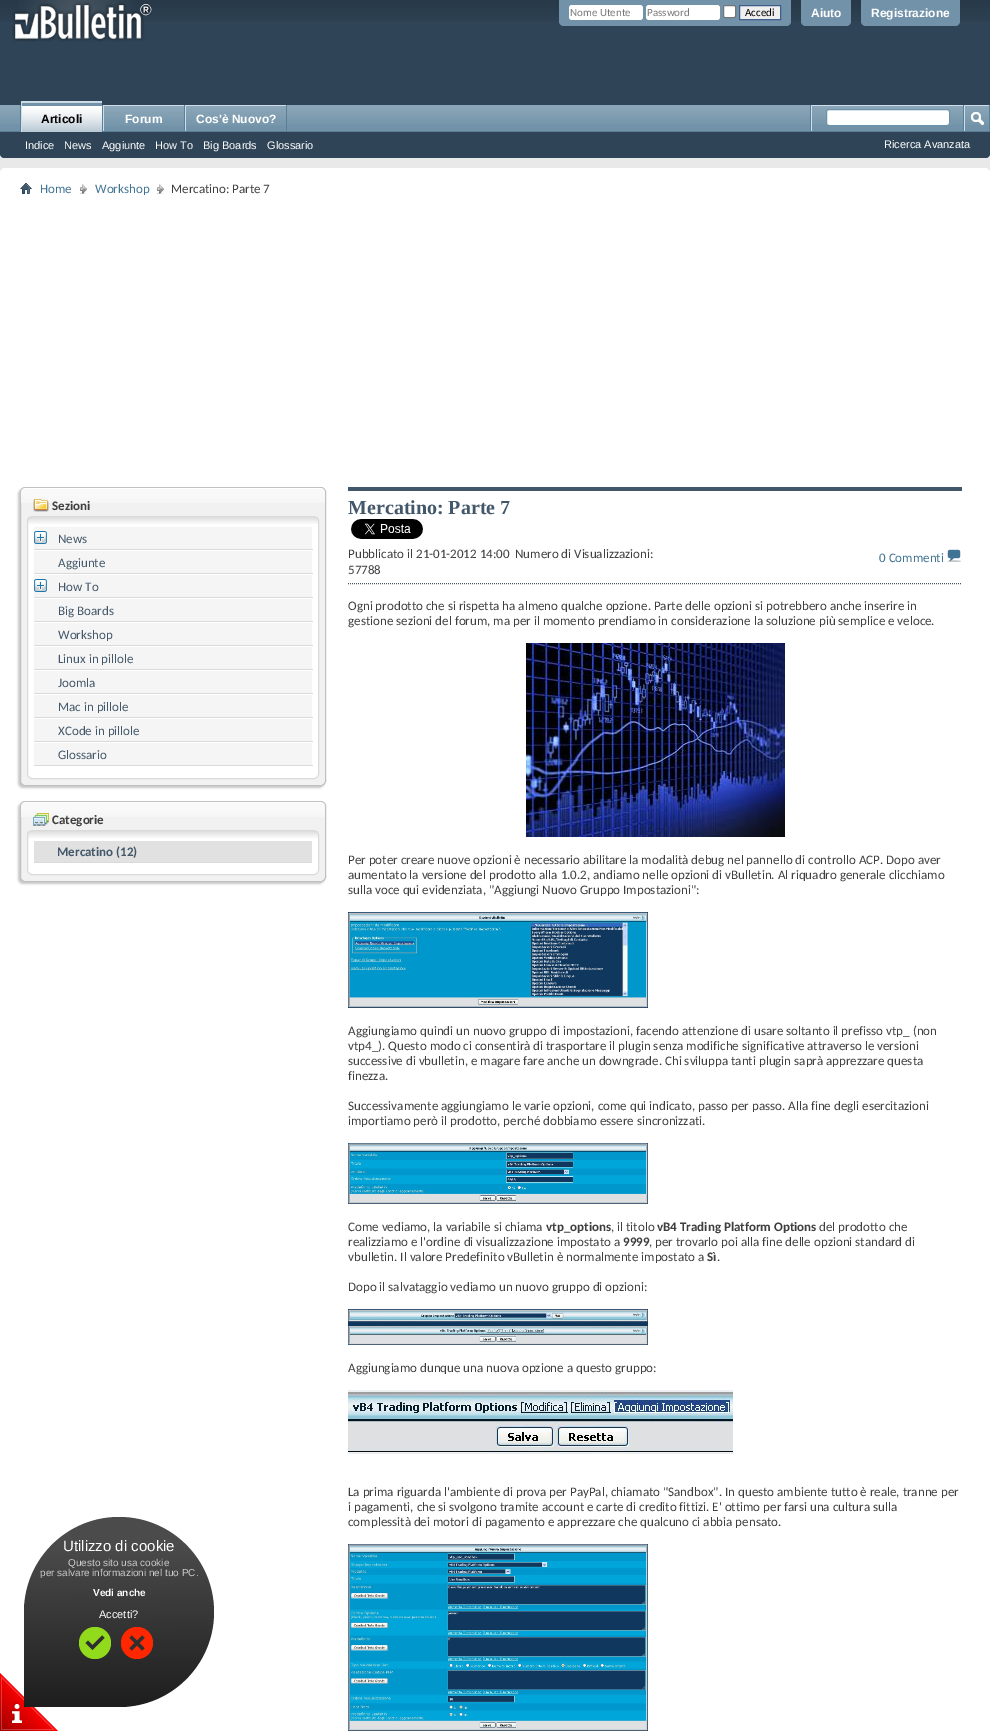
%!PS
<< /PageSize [990 1731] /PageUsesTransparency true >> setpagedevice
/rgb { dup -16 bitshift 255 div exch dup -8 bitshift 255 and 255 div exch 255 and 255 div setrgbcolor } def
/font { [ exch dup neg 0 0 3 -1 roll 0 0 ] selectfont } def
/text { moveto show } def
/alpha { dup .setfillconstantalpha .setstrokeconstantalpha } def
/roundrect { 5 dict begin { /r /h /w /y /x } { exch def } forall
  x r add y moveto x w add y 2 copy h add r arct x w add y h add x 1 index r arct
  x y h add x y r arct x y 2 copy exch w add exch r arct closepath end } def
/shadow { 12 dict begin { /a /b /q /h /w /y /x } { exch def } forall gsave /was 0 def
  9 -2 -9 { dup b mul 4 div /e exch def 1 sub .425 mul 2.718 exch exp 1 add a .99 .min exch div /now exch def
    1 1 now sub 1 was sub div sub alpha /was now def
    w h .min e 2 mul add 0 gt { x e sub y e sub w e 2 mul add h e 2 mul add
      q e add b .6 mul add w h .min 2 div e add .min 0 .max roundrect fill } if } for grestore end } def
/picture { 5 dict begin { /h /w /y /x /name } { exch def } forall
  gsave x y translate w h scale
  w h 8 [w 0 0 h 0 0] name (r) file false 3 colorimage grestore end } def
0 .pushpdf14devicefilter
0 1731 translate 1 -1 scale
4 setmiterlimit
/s1 { /Carlito-Regular 11 font 16#777777 rgb } def
/s2 { /Carlito-Regular 11 font 16#000000 rgb } def
/s3 { /LiberationSans-Bold 12 font 16#FFFFFF rgb } def
/s4 { /LiberationSans-Bold 12 font 16#000000 rgb } def
/s5 { /LiberationSans-Regular 11 font 16#FFFFFF rgb } def
/s6 { /Carlito-Regular 13 font 16#417394 rgb } def
/s7 { /Carlito-Regular 13 font 16#3E3E3E rgb } def
/s8 { /Carlito-Bold 13 font 16#3E3E3E rgb } def
/s9 { /Carlito-Regular 13 font 16#425769 rgb } def
/s10 { /Carlito-Bold 13 font 16#425769 rgb } def
/s11 { /LiberationSerif-Bold 20 font 16#425769 rgb } def
/s12 { /LiberationSans-Regular 15 font 16#FFFFFF rgb } def
/s13 { /LiberationSans-Regular 10 font 16#CCCCCC rgb } def
/s14 { /LiberationSans-Bold 10 font 16#FFFFFF rgb } def
16#E9E9E9 rgb
0 0 990 1731 rectfill
16#2F4456 rgb
0 0 moveto 990 0 lineto 990 153 lineto 990 156 988 158 985 158 curveto 5 158 lineto 2 158 0 156 0 153 curveto closepath fill
(pic1.raw) 0 0 990 22 picture
(pic2.raw) 12 0 140 42 picture
16#7192A8 rgb
559 0 moveto 791 0 lineto 791 21 lineto 791 24 789 26 786 26 curveto 564 26 lineto 561 26 559 24 559 21 curveto closepath fill
16#FFFFFF rgb
569 5 74 15 3 roundrect fill
s1
(Nome Utente) 570 16 text
16#FFFFFF rgb
646 5 74 15 3 roundrect fill
s1
(Password) 647 16 text
16#FFFFFF rgb
723.5 5.5 12 12 1.5 roundrect gsave fill grestore
16#767676 rgb
stroke
16#EFEFEF rgb
739.5 5.5 moveto 780.5 5.5 lineto 780.5 19.5 lineto 739.5 19.5 lineto closepath gsave fill grestore
16#415D8D rgb
stroke
s2
(Accedi) 745 16 text
16#7192A8 rgb
801 0 moveto 851 0 lineto 851 21 lineto 851 24 849 26 846 26 curveto 806 26 lineto 803 26 801 24 801 21 curveto closepath fill
s3
(Aiuto) 811 17 text
16#7192A8 rgb
861 0 moveto 960 0 lineto 960 21 lineto 960 24 958 26 955 26 curveto 866 26 lineto 863 26 861 24 861 21 curveto closepath fill
s3
(Registrazione) 871 17 text
16#2F4456 rgb
0 105 moveto 990 105 lineto 990 153 lineto 990 156 988 158 985 158 curveto 5 158 lineto 2 158 0 156 0 153 curveto closepath fill
16#7192A8 rgb
0 105 989 26 rectfill
(pic3.raw) 0 105 989 20 picture
16#5A7F97 rgb
102 105 1 26 rectfill
20 105 1 26 rectfill
184 105 1 27 rectfill
16#CEDFEB rgb
103 105 81 1 rectfill
103 105 1 27 rectfill
16#5A7F97 rgb
286 105 1 27 rectfill
16#CEDFEB rgb
185 105 101 1 rectfill
185 105 1 27 rectfill
16#5A7F97 rgb
0 131 990 1 rectfill
16#7192A8 rgb
22 102 80 30 rectfill
(pic4.raw) 22 102 80 30 picture
16#CEDFEB rgb
21 101 81 1 rectfill
21 101 1 31 rectfill
s4
(Articoli) 41 123 text
16#7192A8 rgb
104 106 80 19 rectfill
(pic5.raw) 104 106 80 20 picture
s3
(Forum) 125 123 text
16#7192A8 rgb
186 106 100 19 rectfill
(pic6.raw) 186 106 100 20 picture
s3
(Cos'è Nuovo?) 196 123 text
s5
(Indice) 25 149 text
(News) 64 149 text
(Aggiunte) 102 149 text
(How To) 155 149 text
(Big Boards) 203 149 text
(Glossario) 267 149 text
16#5A7F97 rgb
810 105 1 26 rectfill
16#CEDFEB rgb
811 105 152 1 rectfill
811 105 1 26 rectfill
16#FFFFFF rgb
826.5 109.5 123 16 2.5 roundrect gsave fill grestore
16#6B91AB rgb
stroke
16#5A7F97 rgb
989 105 1 26 rectfill
963 105 1 26 rectfill
16#CEDFEB rgb
964 105 25 1 rectfill
964 105 1 26 rectfill
(pic7.raw) 971 112 13 14 picture
s5
(Ricerca Avanzata) 884 148 text
0 168 990 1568 5 roundrect fill
(pic8.raw) 20 183 12 11 picture
(pic9.raw) 80 184 7 10 picture
s6
(Home) 40 193 text
(pic9.raw) 157 184 7 10 picture
(Workshop) 95 193 text
s7
(Mercatino: Parte 7) 171 193 text
16#C8C8C8 rgb
18 489 306 299 5 1 1 shadow
16#F1F1F1 rgb
20.5 487.5 305 298 4.5 roundrect gsave fill grestore
16#C1C1C1 rgb
stroke
(pic10.raw) 21 488 304 15 picture
(pic11.raw) 33 499 16 13 picture
s8
(Sezioni) 52 510 text
16#FFFFFF rgb
27 516 292 263 5 roundrect fill
(pic12.raw) 27 517 292 7 picture
16#DADADA rgb
27.5 516.5 291 262 4.5 roundrect stroke
16#F5F5F5 rgb
34 527 278 238 rectfill
16#FFFFFF rgb
34 550 278 1 rectfill
(pic13.raw) 34 531 13 13 picture
16#DADADA rgb
34 549 279 1 rectfill
s9
(News) 58 543 text
16#FFFFFF rgb
34 574 278 1 rectfill
16#DADADA rgb
34 573 279 1 rectfill
s9
(Aggiunte) 58 567 text
16#FFFFFF rgb
34 598 278 1 rectfill
(pic13.raw) 34 579 13 13 picture
16#DADADA rgb
34 597 279 1 rectfill
s9
(How To) 58 591 text
16#FFFFFF rgb
34 622 278 1 rectfill
16#DADADA rgb
34 621 279 1 rectfill
s9
(Big Boards) 58 615 text
16#FFFFFF rgb
34 646 278 1 rectfill
16#DADADA rgb
34 645 279 1 rectfill
s9
(Workshop) 58 639 text
16#FFFFFF rgb
34 670 278 1 rectfill
16#DADADA rgb
34 669 279 1 rectfill
s9
(Linux in pillole) 58 663 text
16#FFFFFF rgb
34 694 278 1 rectfill
16#DADADA rgb
34 693 279 1 rectfill
s9
(Joomla) 58 687 text
16#FFFFFF rgb
34 718 278 1 rectfill
16#DADADA rgb
34 717 279 1 rectfill
s9
(Mac in pillole) 58 711 text
16#FFFFFF rgb
34 742 278 1 rectfill
16#DADADA rgb
34 741 279 1 rectfill
s9
(XCode in pillole) 58 735 text
16#DADADA rgb
34 765 279 1 rectfill
s9
(Glossario) 58 759 text
16#C8C8C8 rgb
18 803 306 81 5 1 1 shadow
16#F1F1F1 rgb
20.5 801.5 305 80 4.5 roundrect gsave fill grestore
16#C1C1C1 rgb
stroke
(pic10.raw) 21 802 304 15 picture
(pic14.raw) 33 813 16 13 picture
s8
(Categorie) 52 824 text
16#FFFFFF rgb
27 830 292 45 5 roundrect fill
(pic12.raw) 27 831 292 7 picture
16#DADADA rgb
27.5 830.5 291 44 4.5 roundrect stroke
16#E1E1E1 rgb
34 841 278 21 rectfill
16#DADADA rgb
34 862 278 1 rectfill
s10
(Mercatino \(12\)) 57 856 text
348 487 614 4 rectfill
s11
(Mercatino: Parte 7) 348 514 text
[1 1] 0 setdash
348 583.5 moveto 962 583.5 lineto stroke
(pic15.raw) 351 519 72 20 picture
s7
(Pubblicato il 21-01-2012 14:00) 348 558 text
(Numero di Visualizzazioni:) 515 558 text
(57788) 348 574 text
s6
(0 Commenti) 879 562 text
(pic16.raw) 947 549 15 13 picture
s7
(Ogni prodotto che si rispetta ha almeno qualche opzione. Parte delle opzioni si potrebbero anche inserire in) 348 610 text
(gestione sezioni del forum, ma per il momento prendiamo in considerazione la soluzione più semplice e veloce.) 348 625 text
(pic17.raw) 526 643 259 194 picture
(Per poter creare nuove opzioni è necessario abilitare la modalità debug nel pannello di controllo ACP. Dopo aver) 348 864 text
(aumentato la versione del prodotto alla 1.0.2, andiamo nelle opzioni di vBulletin. Al riquadro generale clicchiamo) 348 879 text
(sulla voce qui evidenziata, "Aggiungi Nuovo Gruppo Impostazioni":) 348 894 text
(pic18.raw) 348 912 300 96 picture
(Aggiungiamo quindi un nuovo gruppo di impostazioni, facendo attenzione di usare soltanto il prefisso vtp_ \(non) 348 1035 text
(vtp4_\). Questo modo ci consentirà di trasportare il plugin senza modifiche significative attraverso le versioni) 348 1050 text
(successive di vbulletin, e magare fare anche un downgrade. Chi sviluppa tanti plugin saprà apprezzare questa) 348 1065 text
(finezza.) 348 1080 text
(Successivamente aggiungiamo le varie opzioni, come qui indicato, passo per passo. Alla fine degli esercitazioni) 348 1110 text
(importiamo però il prodotto, perché dobbiamo essere sincronizzati.) 348 1125 text
(pic19.raw) 348 1143 300 61 picture
(Come vediamo, la variabile si chiama) 348 1231 text
s8
(vtp_options) 546 1231 text
s7
(, il titolo) 611 1231 text
s8
(vB4 Trading Platform Options) 657 1231 text
s7
(del prodotto che) 819 1231 text
(realizziamo e l'ordine di visualizzazione impostato a) 348 1246 text
s8
(9999) 623 1246 text
s7
(, per trovarlo poi alla fine delle opzioni standard di) 649 1246 text
(vbulletin. Il valore Predefinito vBulletin è normalmente impostato a) 348 1261 text
s8
(Sì) 707 1261 text
s7
(.) 717 1261 text
(Dopo il salvataggio vediamo un nuovo gruppo di opzioni:) 348 1291 text
(pic20.raw) 348 1309 300 36 picture
(Aggiungiamo dunque una nuova opzione a questo gruppo:) 348 1372 text
(pic21.raw) 348 1390 385 64 picture
(La prima riguarda l'ambiente di prova per PayPal, chiamato "Sandbox". In questo ambiente tutto è reale, tranne per) 348 1496 text
(i pagamenti, che si svolgono tramite account e carte di credito fittizi. E' ottimo per farsi una cultura sulla) 348 1511 text
(complessità dei motori di pagamento e apprezzare che qualcuno ci abbia pensato.) 348 1526 text
(pic22.raw) 348 1544 300 187 picture
(pic26.raw) 0 1673 58 58 picture
(pic23.raw) 24 1517 190 190 picture
s12
(Utilizzo di cookie) 63 1551 text
s13
(Questo sito usa cookie) 68 1566 text
(per salvare informazioni nel tuo PC.) 40 1576 text
s14
(Vedi anche) 93 1596 text
s5
(Accetti?) 99 1618 text
(pic24.raw) 79 1627 32 32 picture
(pic25.raw) 121 1627 32 32 picture
.poppdf14devicefilter showpage
